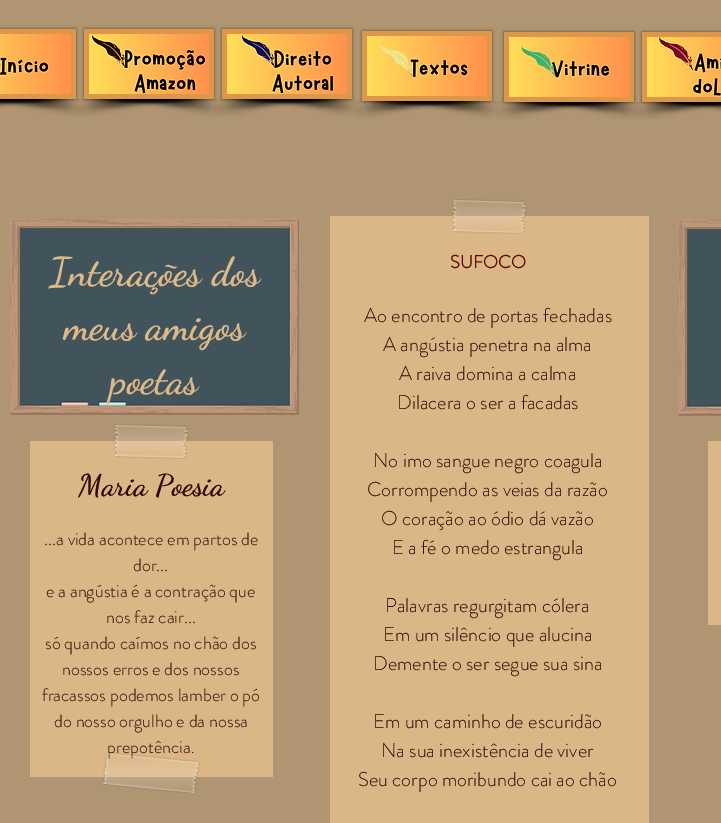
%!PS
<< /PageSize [721 823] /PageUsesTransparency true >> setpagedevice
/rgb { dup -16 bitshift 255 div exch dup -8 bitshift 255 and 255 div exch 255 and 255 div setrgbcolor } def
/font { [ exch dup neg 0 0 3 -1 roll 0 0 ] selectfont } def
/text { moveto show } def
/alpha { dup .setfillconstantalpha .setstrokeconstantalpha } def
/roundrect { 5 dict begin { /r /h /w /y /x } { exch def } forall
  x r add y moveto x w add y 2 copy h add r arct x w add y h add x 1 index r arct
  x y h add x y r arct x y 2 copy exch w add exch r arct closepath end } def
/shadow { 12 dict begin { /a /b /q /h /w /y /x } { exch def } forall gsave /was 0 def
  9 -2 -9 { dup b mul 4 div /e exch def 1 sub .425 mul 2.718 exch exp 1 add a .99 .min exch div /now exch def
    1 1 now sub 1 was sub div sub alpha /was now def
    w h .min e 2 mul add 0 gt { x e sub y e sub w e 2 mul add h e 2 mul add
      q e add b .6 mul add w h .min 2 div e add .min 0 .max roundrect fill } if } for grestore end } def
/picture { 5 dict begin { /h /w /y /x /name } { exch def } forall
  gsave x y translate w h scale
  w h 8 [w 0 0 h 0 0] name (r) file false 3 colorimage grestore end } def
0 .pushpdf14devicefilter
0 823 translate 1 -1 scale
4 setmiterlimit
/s1 { /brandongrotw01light-Bold 18 font 16#600505 rgb } def
/s2 { /brandongrotw01light-Light 20 font 16#330808 rgb } def
/s3 { /DancingScript-Bold 40 font 16#DEB887 rgb } def
/s4 { /DancingScript-Bold 30 font 16#330808 rgb } def
/s5 { /brandongrotw01light-Light 18 font 16#330808 rgb } def
16#B09572 rgb
0 0 721 823 rectfill
16#000000 rgb
-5 29 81 70 0 1.5 0.5 shadow
16#DD974B rgb
0 29 76 70 rectfill
(pic1.raw) 0 34 71 60 picture
(pic2.raw) 0 99 91 9 picture
(pic3.raw) 0 99 85 18 picture
16#000000 rgb
84 29 130 70 0 1.5 0.5 shadow
16#DD974B rgb
84 29 130 70 rectfill
(pic4.raw) 89 34 120 60 picture
(pic5.raw) 76 99 153 18 picture
(pic6.raw) 76 99 147 18 picture
16#000000 rgb
222 29 130 70 0 1.5 0.5 shadow
16#DD974B rgb
222 29 130 70 rectfill
(pic7.raw) 227 34 120 60 picture
(pic8.raw) 214 99 148 18 picture
(pic6.raw) 214 99 147 18 picture
16#000000 rgb
362 31 130 70 0 1.5 0.5 shadow
16#DD974B rgb
362 31 130 70 rectfill
(pic9.raw) 367 36 120 60 picture
(pic11.raw) 354 101 150 18 picture
(pic10.raw) 352 101 149 18 picture
16#000000 rgb
504 32 130 70 0 1.5 0.5 shadow
16#DD974B rgb
504 32 130 70 rectfill
(pic12.raw) 509 37 120 60 picture
(pic14.raw) 496 102 153 18 picture
(pic13.raw) 494 102 149 18 picture
16#000000 rgb
642 32 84 70 0 1.5 0.5 shadow
16#DD974B rgb
642 32 79 70 rectfill
(pic15.raw) 647 37 74 60 picture
(pic16.raw) 634 102 87 18 picture
(pic17.raw) 634 102 87 10 picture
(pic18.raw) 10 218 289 197 picture
16#DBB686 rgb
330 216 319 607 rectfill
(pic19.raw) 452 199 75 35 picture
s1
(SUFOCO) 450 268 text
s2
(Ao encontro de portas fechadas) 364 322 text
(A angústia penetra na alma) 383 351 text
(A raiva domina a calma) 399 380 text
(Dilacera o ser a facadas) 397 409 text
(No imo sangue negro coagula) 373 467 text
(Corrompendo as veias da razão) 367 496 text
(O coração ao ódio dá vazão) 381 525 text
(E a fé o medo estrangula) 392 554 text
(Palavras regurgitam cólera) 385 612 text
(Em um silêncio que alucina) 383 641 text
(Demente o ser segue sua sina) 373 670 text
(Em um caminho de escuridão) 373 728 text
(Na sua inexistência de viver) 381 757 text
(Seu corpo moribundo cai ao chão) 358 786 text
(pic20.raw) 678 219 43 198 picture
s3
(Interações dos) 49 285 text
(meus amigos) 64 339 text
(poetas) 110 393 text
16#DBB686 rgb
30 441 243 336 rectfill
(pic19.raw) 114 424 75 35 picture
s4
(Maria Poesia) 78 495 text
s5
(...a vida acontece em partos de) 44 545 text
(dor...) 133 571 text
(e a angústia é a contração que) 46 597 text
(nos faz cair...) 106 623 text
(só quando caímos no chão dos) 45 649 text
(nossos erros e dos nossos) 62 675 text
(fracassos podemos lamber o pó) 42 701 text
(do nosso orgulho e da nossa) 54 727 text
(prepotência.) 107 753 text
(pic21.raw) 102 752 98 42 picture
16#DBB686 rgb
708 441 13 184 rectfill
.poppdf14devicefilter showpage
